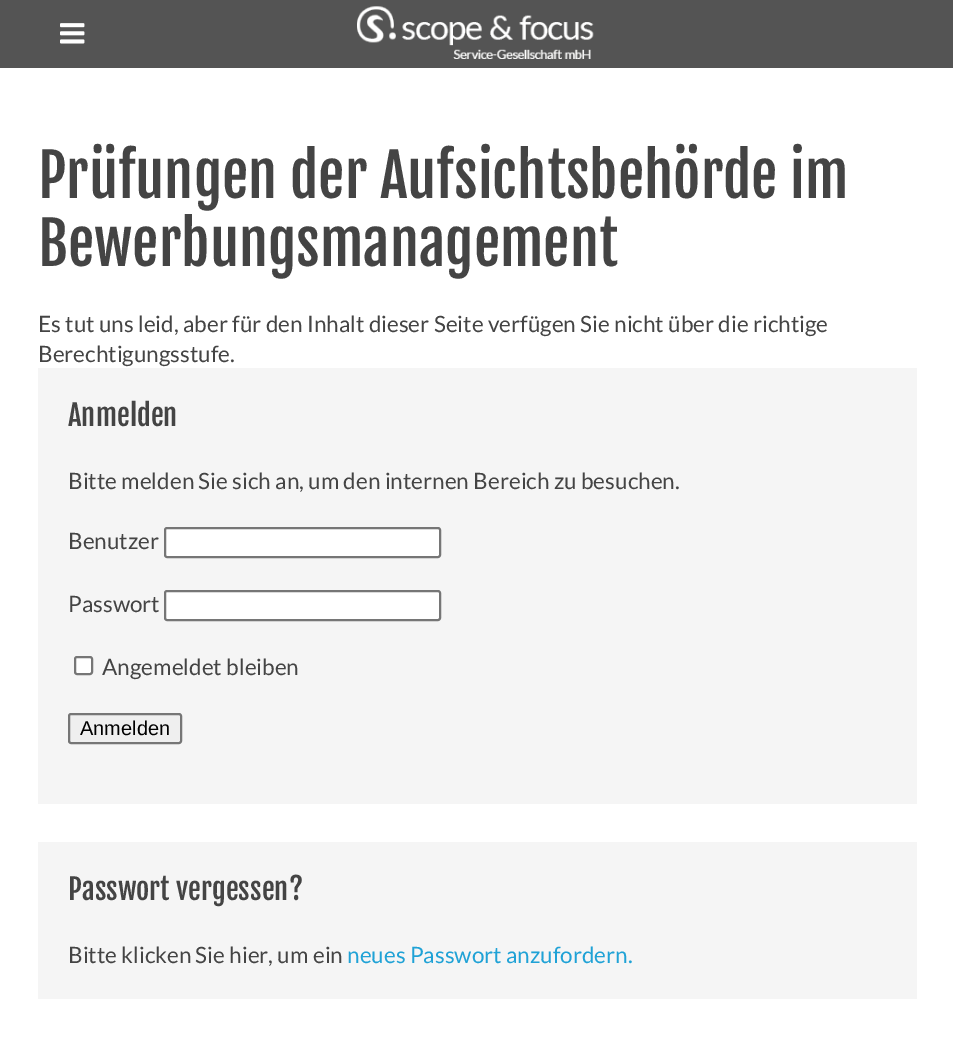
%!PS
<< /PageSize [953 1058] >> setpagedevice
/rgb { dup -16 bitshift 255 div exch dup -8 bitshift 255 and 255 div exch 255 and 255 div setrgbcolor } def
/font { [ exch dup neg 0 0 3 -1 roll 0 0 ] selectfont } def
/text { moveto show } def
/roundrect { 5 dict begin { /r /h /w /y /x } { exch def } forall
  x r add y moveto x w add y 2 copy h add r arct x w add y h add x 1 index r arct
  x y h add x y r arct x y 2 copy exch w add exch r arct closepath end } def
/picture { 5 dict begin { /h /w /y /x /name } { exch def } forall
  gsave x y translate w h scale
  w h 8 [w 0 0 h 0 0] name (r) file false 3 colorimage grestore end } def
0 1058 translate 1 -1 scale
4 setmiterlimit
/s1 { /FjallaOne-Regular 58.5 font 16#444444 rgb } def
/s2 { /Lato-Regular 22.5 font 16#444444 rgb } def
/s3 { /FjallaOne-Regular 28.5 font 16#444444 rgb } def
/s4 { /LiberationSans-Regular 20 font 16#000000 rgb } def
/s5 { /Lato-Regular 22.5 font 16#1FA2D6 rgb } def
16#FFFFFF rgb
0 0 953 1058 rectfill
16#545454 rgb
0 0 953 68 rectfill
(pic1.raw) 60 23 25 21 picture
(pic2.raw) 357 6 237 53 picture
s1
(Prüfungen der Aufsichtsbehörde im) 38 198 text
(Bewerbungsmanagement) 38 266 text
s2
(Es tut uns leid, aber für den Inhalt dieser Seite verfügen Sie nicht über die richtige) 38 332 text
(Berechtigungsstufe.) 38 362 text
16#F5F5F5 rgb
38 368 879 436 rectfill
s3
(Anmelden) 68 426 text
s2
(Bitte melden Sie sich an, um den internen Bereich zu besuchen.) 68 489 text
(Benutzer) 68 549 text
16#FFFFFF rgb
165 528 275 29 2 roundrect gsave fill grestore
16#767676 rgb
2 setlinewidth
stroke
s2
(Passwort) 68 612 text
16#FFFFFF rgb
165 591 275 29 2 roundrect gsave fill grestore
16#767676 rgb
stroke
16#FFFFFF rgb
75 657 17 17 2 roundrect gsave fill grestore
16#767676 rgb
stroke
s2
(Angemeldet bleiben) 102 675 text
16#EFEFEF rgb
69 714 112 29 2 roundrect gsave fill grestore
16#767676 rgb
stroke
s4
(Anmelden) 80 735 text
16#F5F5F5 rgb
38 842 879 157 rectfill
s3
(Passwort vergessen?) 68 900 text
s2
(Bitte klicken Sie hier, um ein) 68 963 text
s5
(neues Passwort anzufordern.) 347 963 text
showpage
